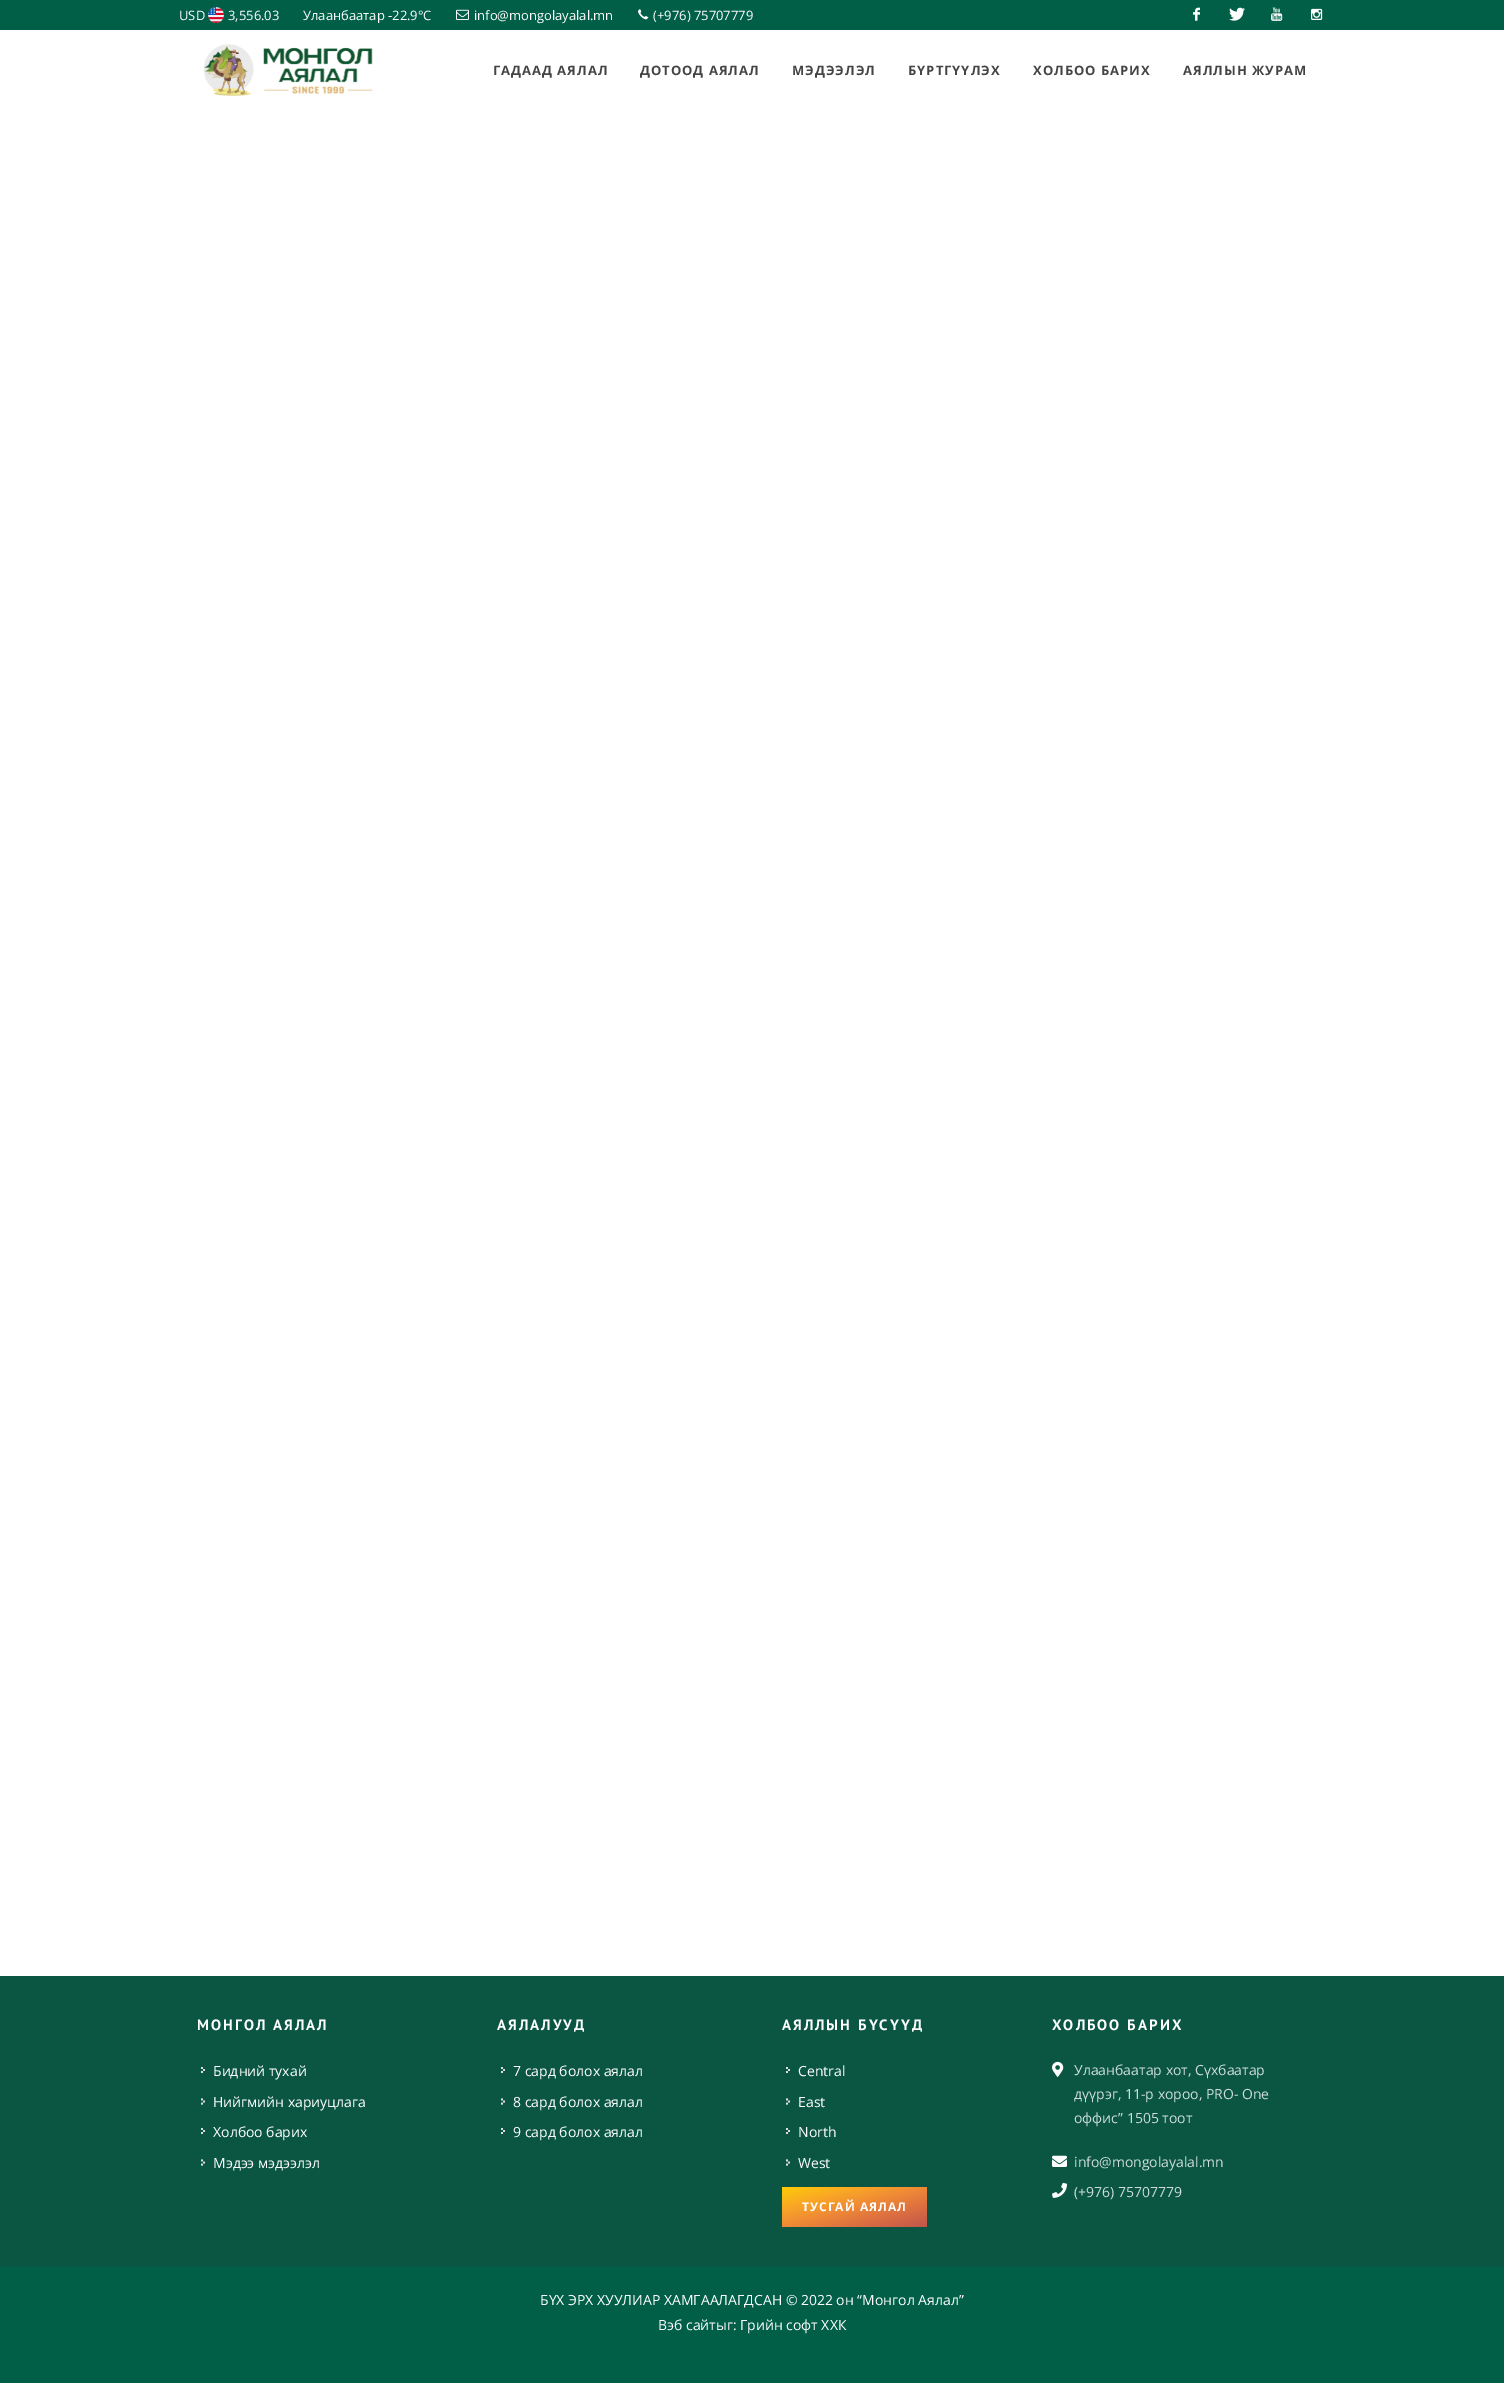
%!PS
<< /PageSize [1504 2385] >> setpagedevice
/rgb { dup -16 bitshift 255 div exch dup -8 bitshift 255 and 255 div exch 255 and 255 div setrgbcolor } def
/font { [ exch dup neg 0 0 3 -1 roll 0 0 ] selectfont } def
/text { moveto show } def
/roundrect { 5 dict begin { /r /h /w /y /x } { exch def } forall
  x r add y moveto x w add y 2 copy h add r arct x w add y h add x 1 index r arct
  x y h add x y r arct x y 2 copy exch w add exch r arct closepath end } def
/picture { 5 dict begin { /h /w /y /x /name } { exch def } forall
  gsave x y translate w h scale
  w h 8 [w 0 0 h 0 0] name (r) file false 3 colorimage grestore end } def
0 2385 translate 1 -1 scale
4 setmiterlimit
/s1 { /OpenSans-Regular 13 font 16#FFFFFF rgb } def
/s2 { /OpenSans-Regular 14 font 16#FFFFFF rgb } def
/s3 { /OpenSans-Regular 14 font 16#CEDDD9 rgb } def
16#FFFFFF rgb
0 0 1504 2385 rectfill
16#005F46 rgb
0 0 1504 30 rectfill
s1
(USD) 179 20 text
(pic1.raw) 208 7 16 16 picture
(3,556.03) 228 20 text
(Улаанбаатар -22.9°C) 303 20 text
(pic2.raw) 456 9 13 11 picture
(info@mongolayalal.mn) 474 20 text
(pic3.raw) 638 9 11 11 picture
(\(+976\) 75707779) 653 20 text
(pic4.raw) 1193 7 7 14 picture
(pic5.raw) 1229 7 16 14 picture
(pic6.raw) 1271 7 12 14 picture
(pic7.raw) 1311 8 12 12 picture
(pic8.raw) 204 44 169 52 picture
/OpenSans-Bold 13 font
16#444444 rgb
493 75 moveto 1 0 (ГАДААД АЯЛАЛ) ashow
640 75 moveto 1 0 (ДОТООД АЯЛАЛ) ashow
792 75 moveto 1 0 (МЭДЭЭЛЭЛ) ashow
908 75 moveto 1 0 (БҮРТГҮҮЛЭХ) ashow
1033 75 moveto 1 0 (ХОЛБОО БАРИХ) ashow
1183 75 moveto 1 0 (АЯЛЛЫН ЖУРАМ) ashow
16#0A5642 rgb
0 1976 1504 291 rectfill
/PTSans-Bold 15 font
16#FFFFFF rgb
197 2030 moveto 2 0 (МОНГОЛ АЯЛАЛ) ashow
(pic9.raw) 201 2067 4 6 picture
s2
(Бидний тухай) 213 2076 text
(pic10.raw) 201 2098 4 7 picture
(Нийгмийн хариуцлага) 213 2107 text
(pic9.raw) 201 2128 4 6 picture
(Холбоо барих) 213 2137 text
(pic10.raw) 201 2159 4 7 picture
(Мэдээ мэдээлэл) 213 2168 text
/PTSans-Bold 15 font
497 2030 moveto 2 0 (АЯЛАЛУУД) ashow
(pic11.raw) 501 2067 4 6 picture
s2
(7 сард болох аялал) 513 2076 text
(pic12.raw) 501 2098 4 7 picture
(8 сард болох аялал) 513 2107 text
(pic11.raw) 501 2128 4 6 picture
(9 сард болох аялал) 513 2137 text
/PTSans-Bold 15 font
782 2030 moveto 2 0 (АЯЛЛЫН БҮСҮҮД) ashow
(pic11.raw) 786 2067 4 6 picture
s2
(Central) 798 2076 text
(pic12.raw) 786 2098 4 7 picture
(East) 798 2107 text
(pic11.raw) 786 2128 4 6 picture
(North) 798 2137 text
(pic12.raw) 786 2159 4 7 picture
(West) 798 2168 text
gsave 782 2187 145 40 3 roundrect clip newpath
<< /ShadingType 2 /ColorSpace /DeviceRGB /Coords [844 2170 865 2244] /Extend [true true] /Function << /FunctionType 3 /Domain [0 1] /Functions [<< /FunctionType 2 /Domain [0 1] /C0 [0.992 0.796 0.027] /C1 [0.98 0.663 0.141] /N 1 >> << /FunctionType 2 /Domain [0 1] /C0 [0.98 0.663 0.141] /C1 [0.937 0.537 0.212] /N 1 >> << /FunctionType 2 /Domain [0 1] /C0 [0.937 0.537 0.212] /C1 [0.859 0.427 0.259] /N 1 >> << /FunctionType 2 /Domain [0 1] /C0 [0.859 0.427 0.259] /C1 [0.753 0.337 0.29] /N 1 >>] /Bounds [0.25 0.5 0.75] /Encode [0 1 0 1 0 1 0 1] >> >> shfill grestore
/OpenSans-Bold 12 font
802 2211 moveto 1 0 (ТУСГАЙ АЯЛАЛ) ashow
/PTSans-Bold 15 font
1052 2030 moveto 2 0 (ХОЛБОО БАРИХ) ashow
(pic13.raw) 1052 2061 12 16 picture
s3
(Улаанбаатар хот, Сүхбаатар) 1074 2075 text
(дүүрэг, 11-р хороо, PRO- One) 1074 2099 text
(оффис” 1505 тоот) 1074 2123 text
(pic14.raw) 1052 2155 15 12 picture
(info@mongolayalal.mn) 1074 2167 text
(pic15.raw) 1052 2182 15 16 picture
(\(+976\) 75707779) 1074 2197 text
16#005F46 rgb
0 2267 1504 116 rectfill
s2
(БҮХ ЭРХ ХУУЛИАР ХАМГААЛАГДСАН © 2022 он “Монгол Аялал”) 540 2305 text
(Вэб сайтыг: Грийн софт ХХК) 658 2330 text
showpage
